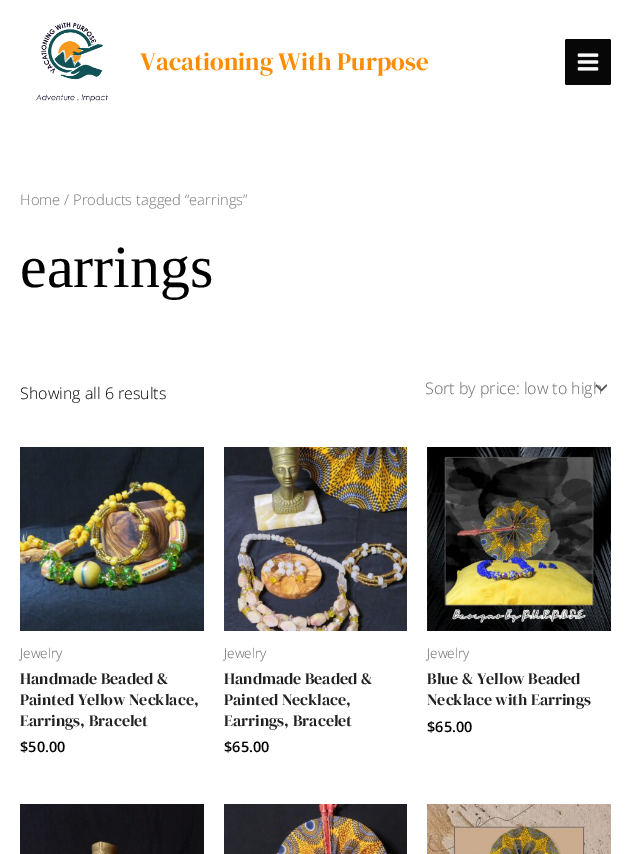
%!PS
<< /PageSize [631 854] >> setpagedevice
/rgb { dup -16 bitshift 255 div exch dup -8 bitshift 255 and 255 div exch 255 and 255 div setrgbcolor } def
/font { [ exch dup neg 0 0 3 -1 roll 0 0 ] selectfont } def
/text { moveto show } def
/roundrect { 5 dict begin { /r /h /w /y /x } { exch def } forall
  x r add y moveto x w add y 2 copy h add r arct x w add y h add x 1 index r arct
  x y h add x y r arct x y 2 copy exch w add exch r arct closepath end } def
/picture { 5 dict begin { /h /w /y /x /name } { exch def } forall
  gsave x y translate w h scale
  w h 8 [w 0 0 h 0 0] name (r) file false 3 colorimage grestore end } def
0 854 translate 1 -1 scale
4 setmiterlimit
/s1 { /DMSerifDisplay-Regular 25 font 16#FE8C00 rgb } def
/s2 { /OpenSans-Light 14.75 font 16#777777 rgb } def
/s3 { /LiberationSerif-Regular 60 font 16#000000 rgb } def
/s4 { /OpenSans-Light 16 font 16#000000 rgb } def
/s5 { /OpenSans-Light 16 font 16#666666 rgb } def
/s6 { /OpenSans-Light 13.5 font 16#666666 rgb } def
/s7 { /DMSerifDisplay-Regular 16 font 16#212121 rgb } def
/s8 { /OpenSans-SemiBold 14.5 font 16#000000 rgb } def
16#FFFFFF rgb
0 0 631 854 rectfill
(pic1.raw) 36 22 72 80 picture
s1
(Vacationing With Purpose) 140 70 text
16#070707 rgb
565 39 46 46 2 roundrect fill
(pic2.raw) 577 53 22 18 picture
s2
(Home / Products tagged “earrings”) 20 205 text
s3
(earrings) 20 287 text
s4
(Showing all 6 results) 20 399 text
(pic3.raw) 595 384 12 8 picture
s5
(Sort by price: low to high) 425 394 text
(pic4.raw) 20 447 184 184 picture
s6
(Jewelry) 20 658 text
s7
(Handmade Beaded &) 20 684 text
(Painted Yellow Necklace,) 20 705 text
(Earrings, Bracelet) 20 726 text
s8
($50.00) 20 752 text
(pic5.raw) 224 447 183 184 picture
s6
(Jewelry) 224 658 text
s7
(Handmade Beaded &) 224 684 text
(Painted Necklace,) 224 705 text
(Earrings, Bracelet) 224 726 text
s8
($65.00) 224 752 text
(pic6.raw) 427 447 184 184 picture
s6
(Jewelry) 427 658 text
s7
(Blue & Yellow Beaded) 427 684 text
(Necklace with Earrings) 427 705 text
s8
($65.00) 427 732 text
(pic7.raw) 20 804 184 50 picture
(pic8.raw) 224 804 183 50 picture
(pic9.raw) 427 804 184 50 picture
showpage
